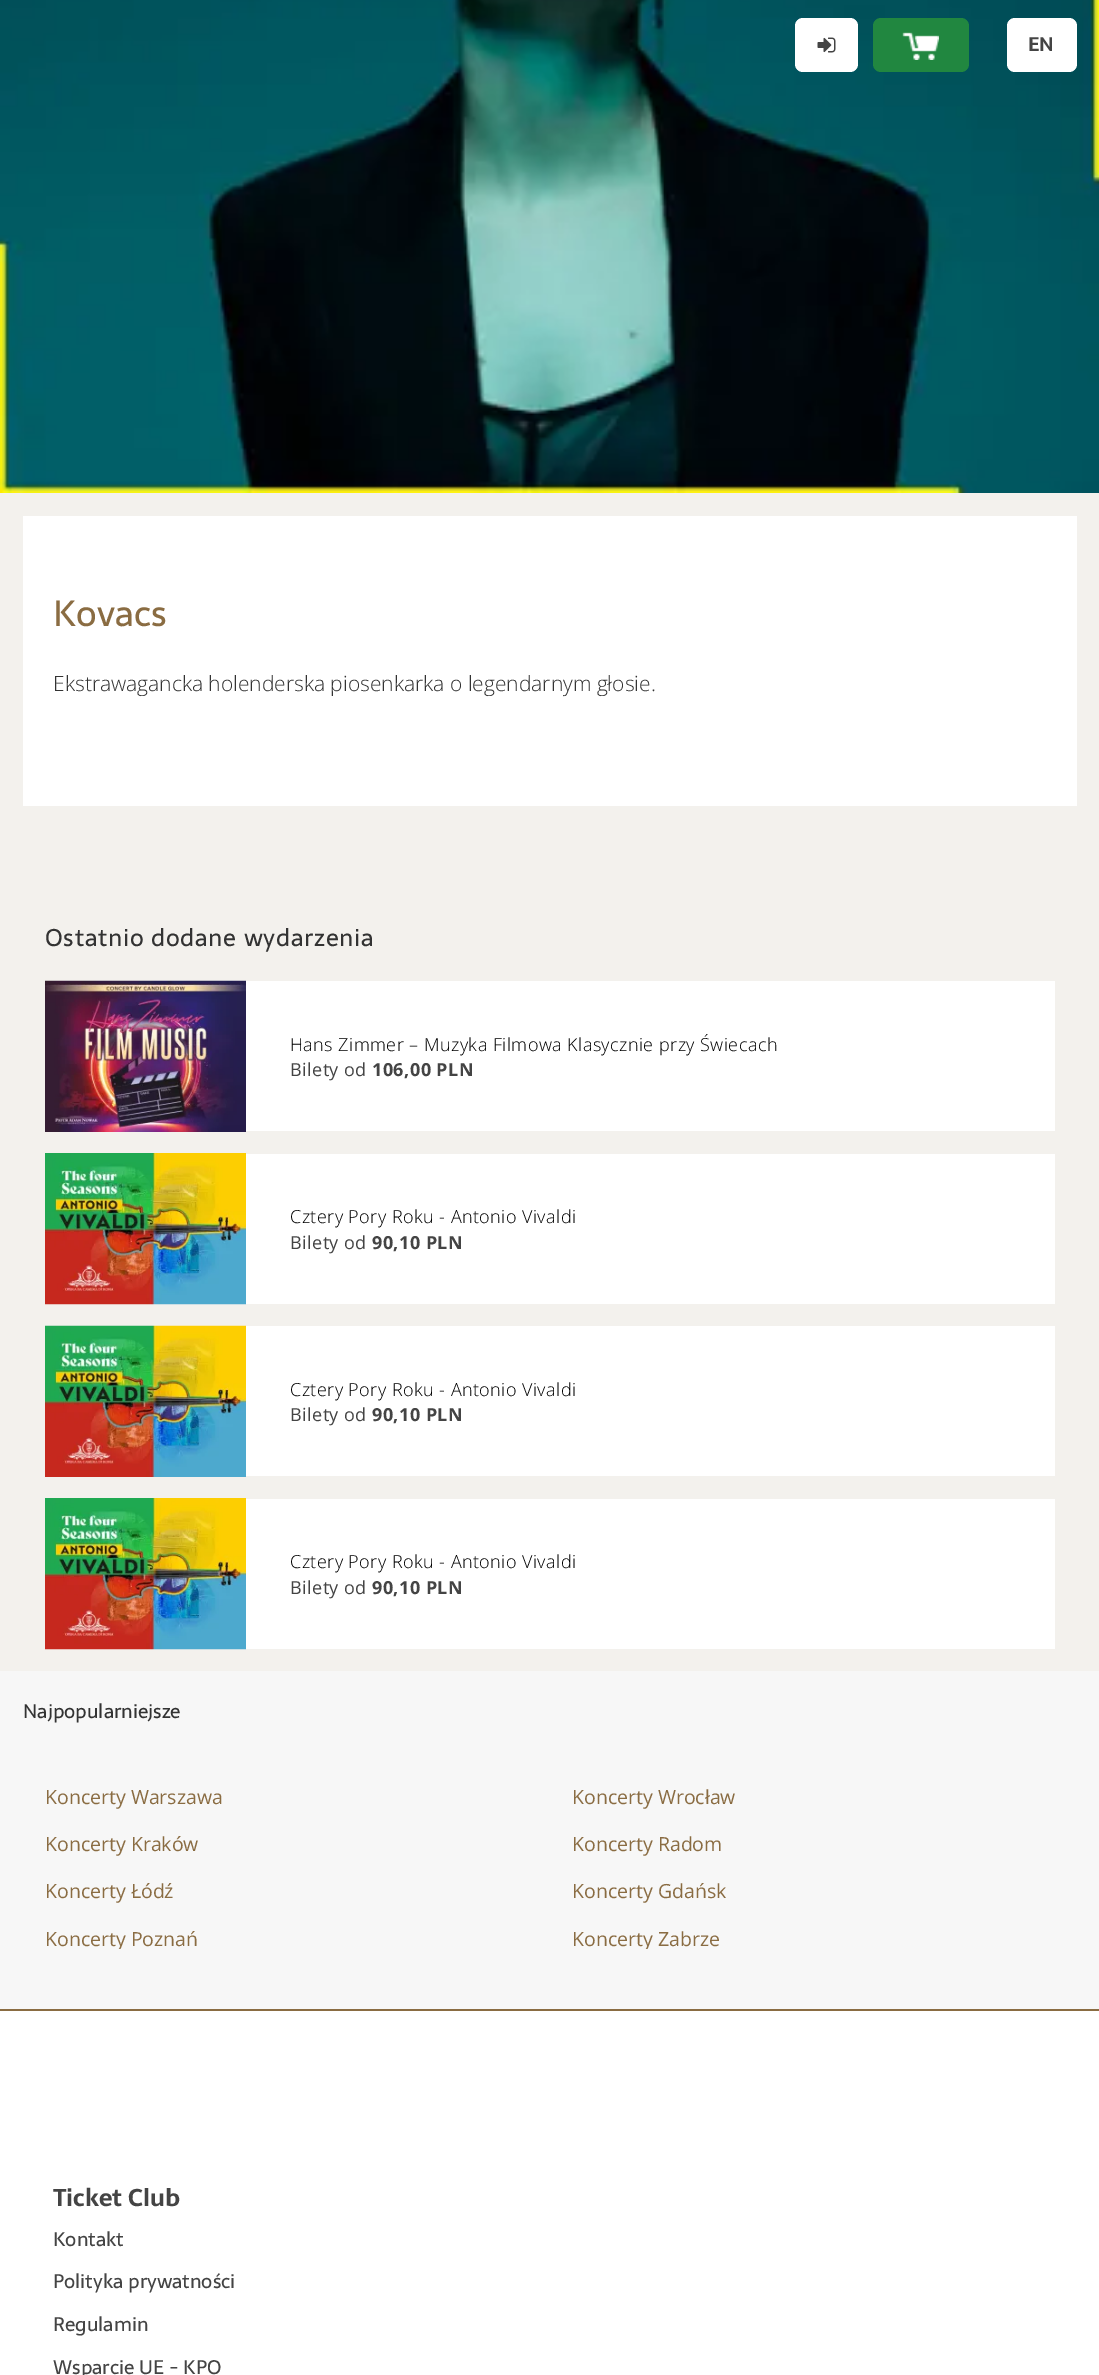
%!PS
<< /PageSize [1099 2375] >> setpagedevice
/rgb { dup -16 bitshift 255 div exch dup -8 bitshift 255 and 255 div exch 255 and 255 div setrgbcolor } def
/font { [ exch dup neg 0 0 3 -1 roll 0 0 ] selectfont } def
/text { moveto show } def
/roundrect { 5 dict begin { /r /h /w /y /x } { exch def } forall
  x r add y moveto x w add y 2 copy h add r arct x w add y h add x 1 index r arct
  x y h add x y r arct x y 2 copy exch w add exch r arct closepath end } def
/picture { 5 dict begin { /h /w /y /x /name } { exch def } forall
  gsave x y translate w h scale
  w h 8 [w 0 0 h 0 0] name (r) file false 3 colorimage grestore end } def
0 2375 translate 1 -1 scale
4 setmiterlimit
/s1 { /Sarala-Bold 19.5 font 16#444444 rgb } def
/s2 { /Sarala-Regular 36 font 16#8A6C42 rgb } def
/s3 { /OpenSans-Light 21 font 16#333333 rgb } def
/s4 { /Sarala-Regular 19.5 font 16#333333 rgb } def
/s5 { /OpenSans-Regular 19.5 font 16#8A6C42 rgb } def
/s6 { /Sarala-Bold 24 font 16#444444 rgb } def
/s7 { /Sarala-Regular 19.5 font 16#444444 rgb } def
16#F3F1ED rgb
0 0 1099 2375 rectfill
(pic3.raw) 0 0 1099 493 picture
16#FFFFFF rgb
795 18 63 54 8 roundrect fill
(pic1.raw) 817 37 19 16 picture
16#218740 rgb
873 18 96 54 8 roundrect fill
(pic2.raw) 902 32 37 28 picture
16#FFFFFF rgb
1007 18 70 54 8 roundrect fill
s1
(EN) 1028 51 text
16#FFFFFF rgb
23 516 1054 290 rectfill
s2
(Kovacs) 53 626 text
s3
(Ekstrawagancka holenderska piosenkarka o legendarnym głosie.) 53 691 text
/Sarala-Regular 24 font
45 946 moveto 0.75 0 (Ostatnio dodane wydarzenia) ashow
16#FFFFFF rgb
246 981 809 150 rectfill
(pic4.raw) 45 980 201 152 picture
/OpenSans-Light 18 font
16#000000 rgb
290 1051 moveto 0.45 0 (Hans Zimmer – Muzyka Filmowa Klasycznie przy Świecach) ashow
/OpenSans-Regular 18 font
16#444444 rgb
290 1076 moveto 0.45 0 (Bilety od) ashow
/OpenSans-Bold 18 font
372 1076 moveto 0.45 0 (106,00 PLN) ashow
16#FFFFFF rgb
246 1154 809 150 rectfill
(pic5.raw) 45 1153 201 152 picture
/OpenSans-Light 18 font
16#000000 rgb
290 1223 moveto 0.45 0 (Cztery Pory Roku - Antonio Vivaldi) ashow
/OpenSans-Regular 18 font
16#444444 rgb
290 1249 moveto 0.45 0 (Bilety od) ashow
/OpenSans-Bold 18 font
372 1249 moveto 0.45 0 (90,10 PLN) ashow
16#FFFFFF rgb
246 1326 809 150 rectfill
(pic6.raw) 45 1325 201 152 picture
/OpenSans-Light 18 font
16#000000 rgb
290 1396 moveto 0.45 0 (Cztery Pory Roku - Antonio Vivaldi) ashow
/OpenSans-Regular 18 font
16#444444 rgb
290 1421 moveto 0.45 0 (Bilety od) ashow
/OpenSans-Bold 18 font
372 1421 moveto 0.45 0 (90,10 PLN) ashow
16#FFFFFF rgb
246 1499 809 150 rectfill
(pic5.raw) 45 1498 201 152 picture
/OpenSans-Light 18 font
16#000000 rgb
290 1568 moveto 0.45 0 (Cztery Pory Roku - Antonio Vivaldi) ashow
/OpenSans-Regular 18 font
16#444444 rgb
290 1594 moveto 0.45 0 (Bilety od) ashow
/OpenSans-Bold 18 font
372 1594 moveto 0.45 0 (90,10 PLN) ashow
16#F7F7F7 rgb
0 1671 1099 338 rectfill
s4
(Najpopularniejsze) 23 1718 text
s5
(Koncerty Warszawa) 45 1804 text
(Koncerty Wrocław) 572 1804 text
(Koncerty Kraków) 45 1851 text
(Koncerty Radom) 572 1851 text
(Koncerty Łódź) 45 1898 text
(Koncerty Gdańsk) 572 1898 text
gsave
23 1671 1054 278 rectclip
(Koncerty Poznań) 45 1946 text
(Koncerty Zabrze) 572 1946 text
grestore
16#FFFFFF rgb
0 2011 1099 364 rectfill
16#8A6C42 rgb
0 2009 1099 2 rectfill
s6
(Ticket Club) 53 2206 text
s7
(Kontakt) 53 2246 text
(Polityka prywatności) 53 2288 text
(Regulamin) 53 2331 text
(Wsparcie UE - KPO) 53 2374 text
showpage
